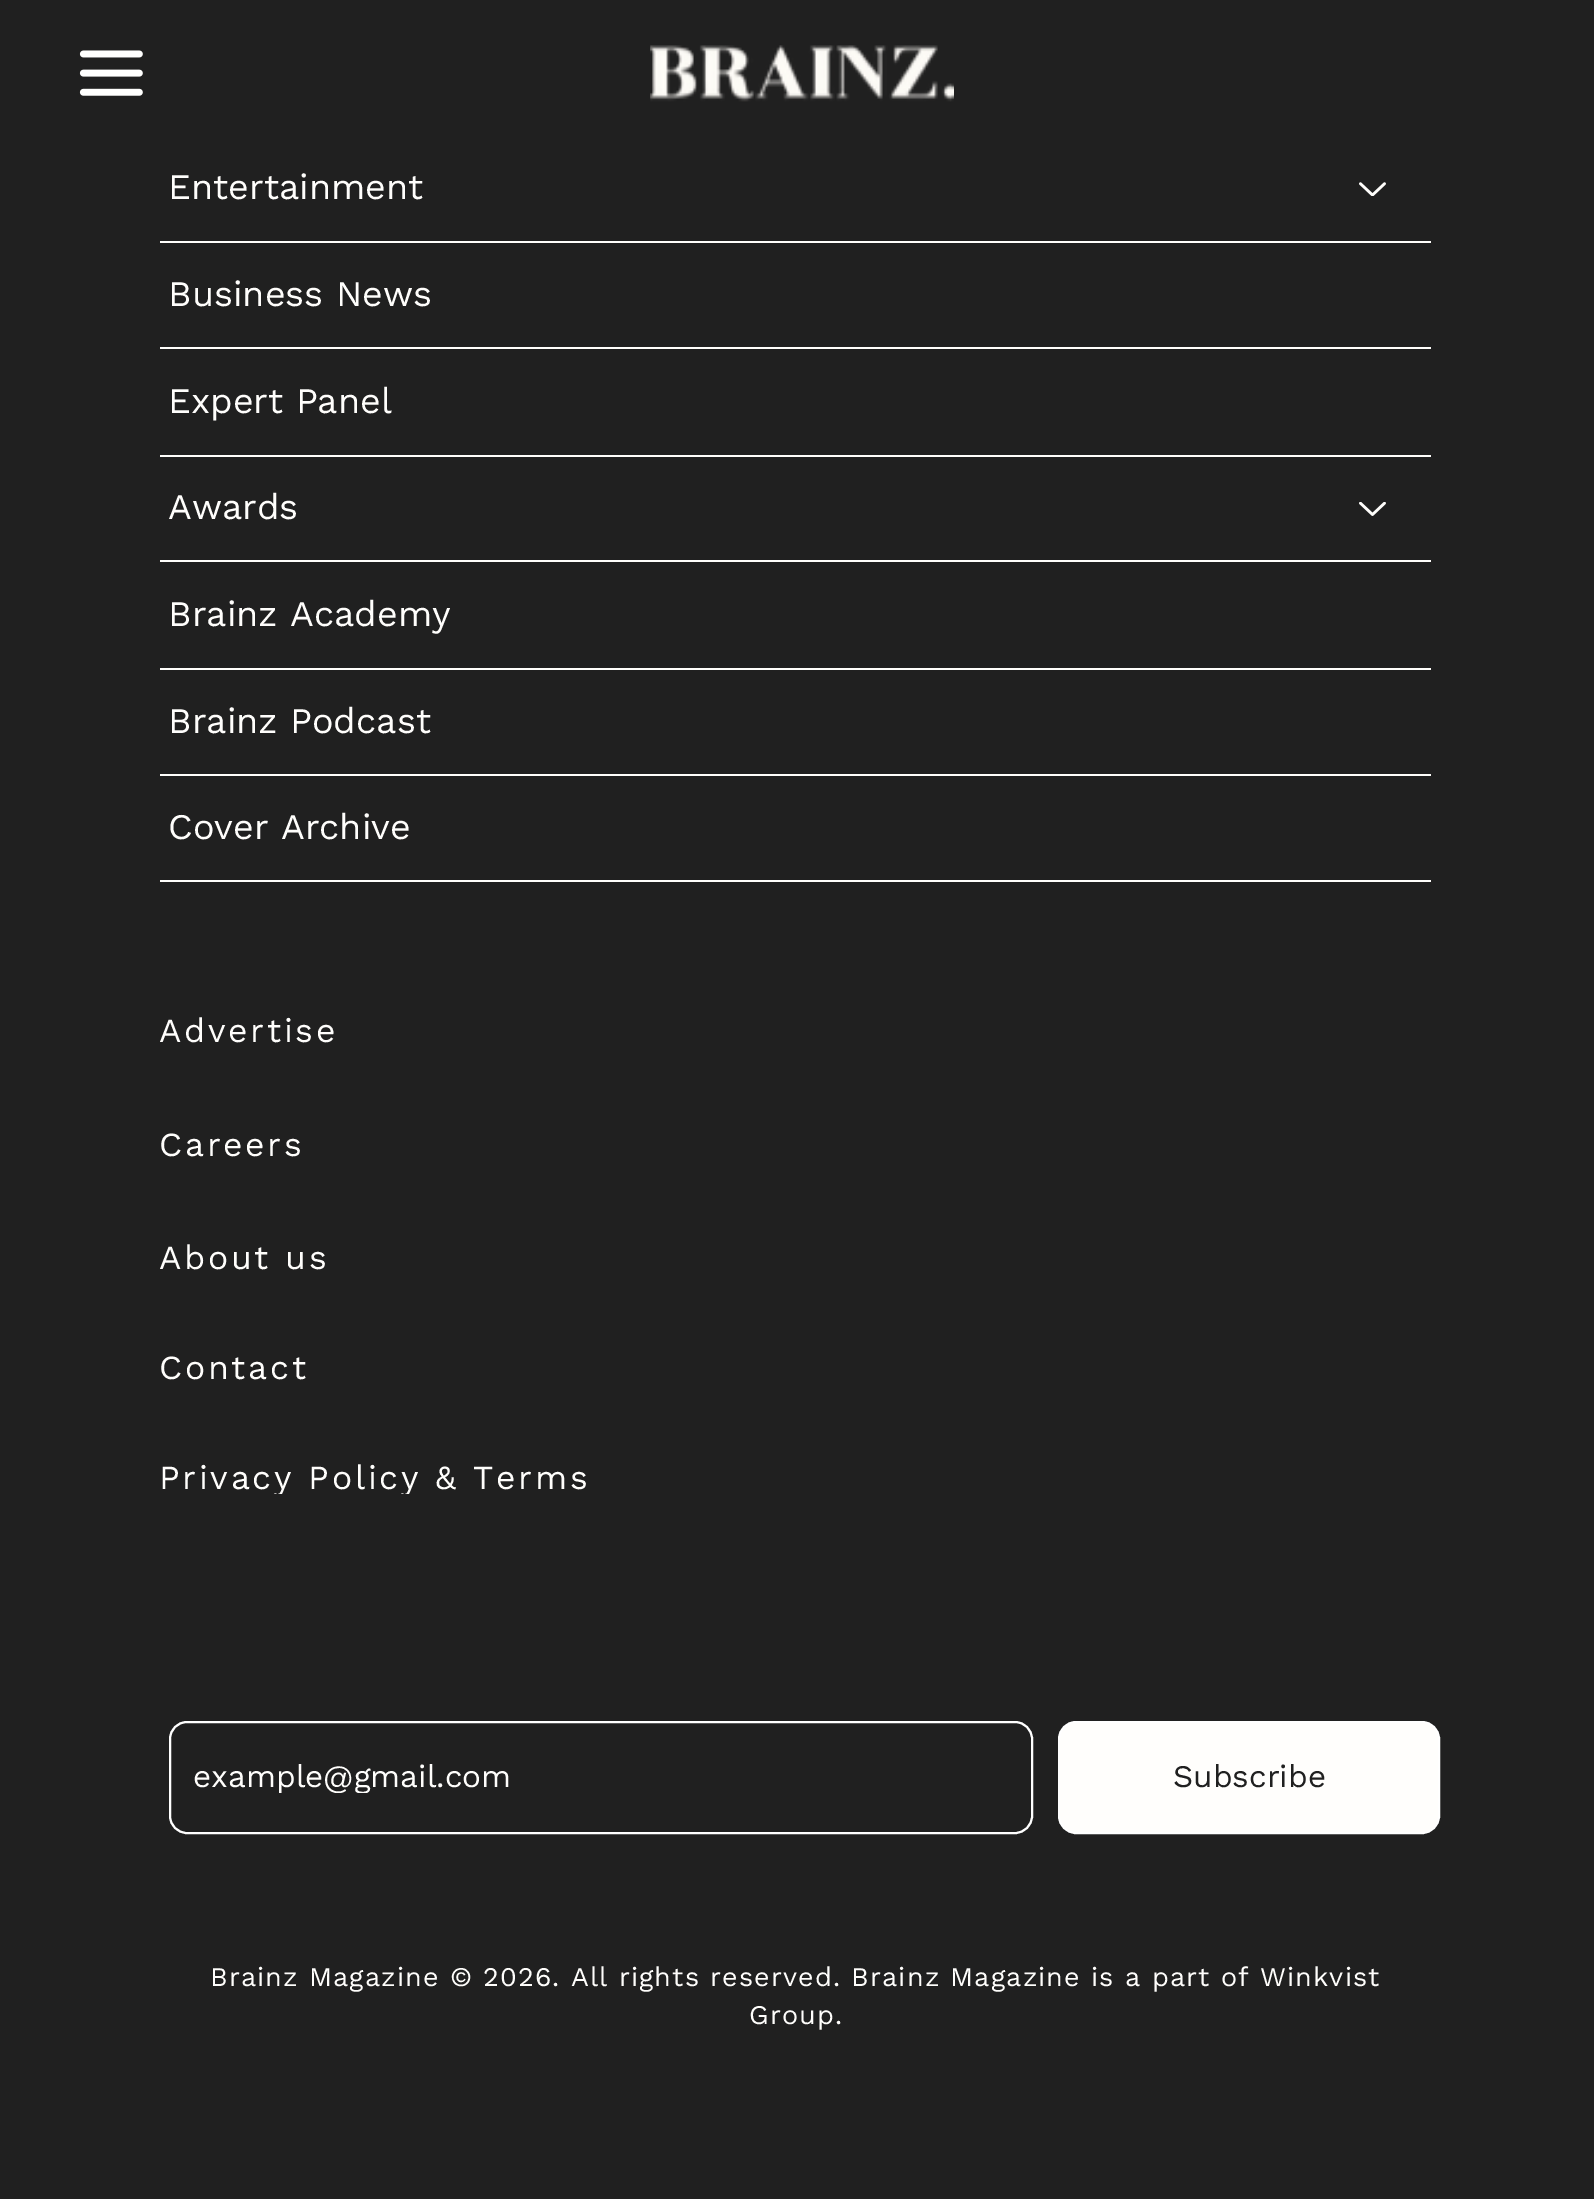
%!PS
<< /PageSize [1594 2199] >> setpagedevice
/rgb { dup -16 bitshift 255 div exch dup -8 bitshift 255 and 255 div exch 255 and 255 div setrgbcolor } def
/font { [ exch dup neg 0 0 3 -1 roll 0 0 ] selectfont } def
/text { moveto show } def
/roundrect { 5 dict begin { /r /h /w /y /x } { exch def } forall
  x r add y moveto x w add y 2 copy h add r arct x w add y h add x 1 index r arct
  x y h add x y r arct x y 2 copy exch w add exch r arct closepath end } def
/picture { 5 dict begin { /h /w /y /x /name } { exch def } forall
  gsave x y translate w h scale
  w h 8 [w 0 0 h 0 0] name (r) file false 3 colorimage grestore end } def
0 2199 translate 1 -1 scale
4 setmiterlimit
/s1 { /WorkSans-Regular 36 font 16#FFFEFC rgb } def
/s2 { /WorkSans-Regular 31.5 font 16#FFFEFC rgb } def
/s3 { /WorkSans-Regular 31.5 font 16#202020 rgb } def
16#202020 rgb
0 0 1594 2199 rectfill
(pic1.raw) 79 50 64 46 picture
(pic2.raw) 650 45 304 57 picture
16#FFFEFC rgb
160 241 1271 2 rectfill
s1
(Entertainment) 168 199 text
(pic3.raw) 1359 182 27 14 picture
160 347 1271 2 rectfill
(Business News) 168 306 text
160 455 1271 2 rectfill
(Expert Panel) 168 413 text
160 560 1271 2 rectfill
(Awards) 168 519 text
(pic4.raw) 1359 502 27 14 picture
160 668 1271 2 rectfill
(Brainz Academy) 168 626 text
160 774 1271 2 rectfill
(Brainz Podcast) 168 733 text
160 880 1271 2 rectfill
(Cover Archive) 168 839 text
/WorkSans-Regular 33.75 font
159 1042 moveto 2.7 0 (Advertise) ashow
159 1156 moveto 2.7 0 (Careers) ashow
159 1269 moveto 2.7 0 (About us) ashow
159 1379 moveto 2.7 0 (Contact) ashow
gsave
160 1460 432 34 rectclip
159 1489 moveto 2.7 0 (Privacy Policy & Terms) ashow
grestore
16#FFFFFF rgb
2 setlinewidth
170 1722 862 111 17 roundrect stroke
gsave
194 1757 830 36 rectclip
s2
(example@gmail.com) 193 1787 text
grestore
16#FFFEFC rgb
1059 1722 380 111 17 roundrect gsave fill grestore
16#FFFFFF rgb
stroke
s3
(Subscribe) 1173 1787 text
/WorkSans-Regular 27 font
16#FFFEFC rgb
210 1986 moveto 1.08 0 (Brainz Magazine © 2026. All rights reserved. Brainz Magazine is a part of Winkvist) ashow
749 2024 moveto 1.08 0 (Group.) ashow
showpage
